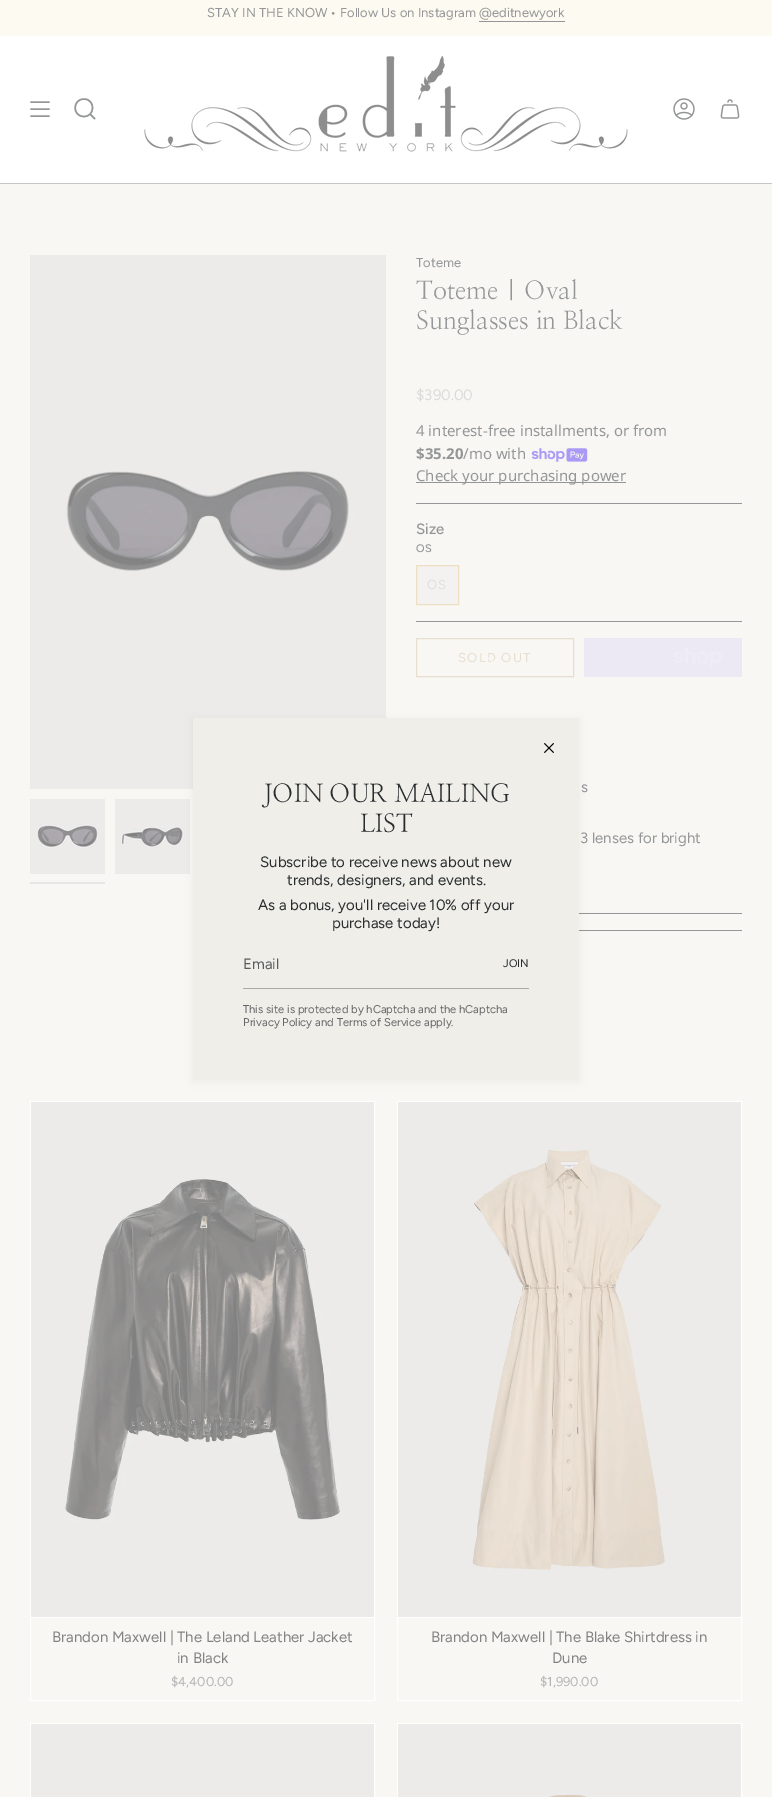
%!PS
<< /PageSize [772 1797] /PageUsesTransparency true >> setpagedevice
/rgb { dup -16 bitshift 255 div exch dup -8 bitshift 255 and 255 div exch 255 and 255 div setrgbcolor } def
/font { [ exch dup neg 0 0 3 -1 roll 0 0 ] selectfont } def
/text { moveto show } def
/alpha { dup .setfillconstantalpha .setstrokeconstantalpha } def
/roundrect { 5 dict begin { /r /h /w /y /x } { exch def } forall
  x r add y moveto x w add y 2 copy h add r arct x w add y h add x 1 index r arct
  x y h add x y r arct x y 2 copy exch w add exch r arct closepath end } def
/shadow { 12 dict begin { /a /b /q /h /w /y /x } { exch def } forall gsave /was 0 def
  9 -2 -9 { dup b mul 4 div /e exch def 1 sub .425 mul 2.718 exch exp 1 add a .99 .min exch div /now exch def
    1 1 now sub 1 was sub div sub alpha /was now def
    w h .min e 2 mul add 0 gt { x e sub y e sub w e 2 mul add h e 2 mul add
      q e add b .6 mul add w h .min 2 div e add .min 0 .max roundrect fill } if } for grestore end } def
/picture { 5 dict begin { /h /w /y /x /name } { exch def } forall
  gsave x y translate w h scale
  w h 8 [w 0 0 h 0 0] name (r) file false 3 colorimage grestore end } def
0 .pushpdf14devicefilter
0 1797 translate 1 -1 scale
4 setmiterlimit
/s1 { /Figtree-Regular 13 font 16#949697 rgb } def
/s2 { /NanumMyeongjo-Regular 25 font 16#949697 rgb } def
/s3 { /Figtree-Regular 15 font 16#DADAD8 rgb } def
/s4 { /NotoSans-Regular 15 font 16#949697 rgb } def
/s5 { /NotoSans-Bold 15 font 16#949697 rgb } def
/s6 { /Figtree-Medium 15 font 16#949697 rgb } def
/s7 { /Figtree-Medium 11 font 16#949697 rgb } def
/s8 { /Figtree-Regular 15 font 16#949697 rgb } def
/s9 { /Figtree-Regular 15 font 16#828283 rgb } def
/s10 { /Figtree-Regular 13 font 16#B2B3B3 rgb } def
/s11 { /NanumMyeongjo-Regular 25 font 16#282C2E rgb } def
/s12 { /Figtree-Regular 15 font 16#282C2E rgb } def
/s13 { /Figtree-Regular 15 font 16#5A5D5D rgb } def
/s14 { /Figtree-Regular 11 font 16#282C2E rgb } def
/s15 { /Figtree-Regular 11.25 font 16#646666 rgb } def
16#F8F7F4 rgb
0 0 772 1797 rectfill
16#FCFAF1 rgb
0 0 772 36 rectfill
s1
(STAY IN THE KNOW • Follow Us on Instagram @editnewyork) 207 17 text
479 21 86 1 rectfill
16#FFFFFF rgb
0 36 772 147 rectfill
16#949697 rgb
1.5 setlinewidth
1 setlinecap
1 setlinejoin
31 102 moveto 49 102 lineto 31 109 moveto 49 109 lineto 31 116 moveto 49 116 lineto stroke
0 setlinecap
0 setlinejoin
84 99 moveto 95.5 99 95.5 117 83.5 116.5 curveto 72 116 72.5 99 84 99 curveto closepath 90 114 moveto 95 119 lineto stroke
(pic1.raw) 144 55 484 97 picture
(pic2.raw) 673 98 22 22 picture
(pic3.raw) 720 99 20 20 picture
16#C6C6C6 rgb
0 183 772 1 rectfill
(pic4.raw) 30 255 356 534 picture
(pic5.raw) 30 799 75 75 picture
16#E6E6E6 rgb
30 882 75 2 rectfill
(pic6.raw) 115 799 75 75 picture
s1
(Toteme) 416 267 text
s2
(Toteme | Oval) 416 299 text
(Sunglasses in Black) 416 329 text
s3
($390.00) 416 400 text
s4
(4 interest-free installments, or from) 416 436 text
s5
($35.20) 416 459 text
s4
(/mo with) 463 459 text
(pic7.raw) 531 448 57 14 picture
416 482 210 1 rectfill
(Check your purchasing power) 416 481 text
416 503 326 1 rectfill
416 621 326 1 rectfill
s6
(Size) 416 534 text
s7
(OS) 416 552 text
16#F3F2F0 rgb
416.5 565.5 moveto 458.5 565.5 lineto 458.5 604.5 lineto 416.5 604.5 lineto closepath gsave fill grestore
16#EEDFC3 rgb
1 setlinewidth
stroke
/Figtree-Regular 13 font
16#E0DFDE rgb
427 589 moveto 1.25 0 (OS) ashow
16#E7DECF rgb
416.5 638.5 157 38 rectstroke
458 662 moveto 1.25 0 (SOLD OUT) ashow
16#F8F7F4 rgb
492 662.5 moveto 502 652.5 lineto 503 653.5 lineto 493 663 lineto closepath fill
487 657.5 moveto 488 657 lineto 493.5 662.5 lineto 493 663 lineto closepath fill
16#ECE9F4 rgb
584 638 158 39 rectfill
(pic8.raw) 674 648 48 19 picture
s8
(s) 581 792 text
(3 lenses for bright) 580 843 text
579 913 163 1 rectfill
579 930 163 1 rectfill
16#FFFFFF rgb
30.5 1101.5 344 599 rectstroke
31 1617 343 1 rectfill
(pic9.raw) 31 1102 343 515 picture
s9
(Brandon Maxwell | The Leland Leather Jacket) 52 1642 text
(in Black) 177 1663 text
s10
($4,400.00) 171 1686 text
16#FFFFFF rgb
397.5 1101.5 344 599 rectstroke
398 1617 343 1 rectfill
(pic10.raw) 398 1102 343 515 picture
s9
(Brandon Maxwell | The Blake Shirtdress in) 431 1642 text
(Dune) 552 1663 text
s10
($1,990.00) 540 1686 text
16#FFFFFF rgb
30.5 1723.5 344 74 rectstroke
16#ECEBEA rgb
31 1724 343 73 rectfill
16#FFFFFF rgb
397.5 1723.5 344 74 rectstroke
(pic11.raw) 398 1724 343 73 picture
16#000000 rgb
193 720 386 361 0 5 0.05 shadow
16#F0EEE9 rgb
193 718 386 361 rectfill
(pic12.raw) 544 743 10 10 picture
s11
(JOIN OUR MAILING) 263 802 text
(LIST) 360 832 text
s12
(Subscribe to receive news about new) 260 867 text
(trends, designers, and events.) 287 885 text
(As a bonus, you'll receive 10% off your) 258 910 text
(purchase today!) 332 928 text
16#AAAAA8 rgb
243 988 286 1 rectfill
s13
(Email) 243 969 text
s14
(JOIN) 503 967 text
s15
(This site is protected by hCaptcha and the hCaptcha) 243 1013 text
(Privacy Policy and Terms of Service apply.) 243 1026 text
.poppdf14devicefilter showpage
